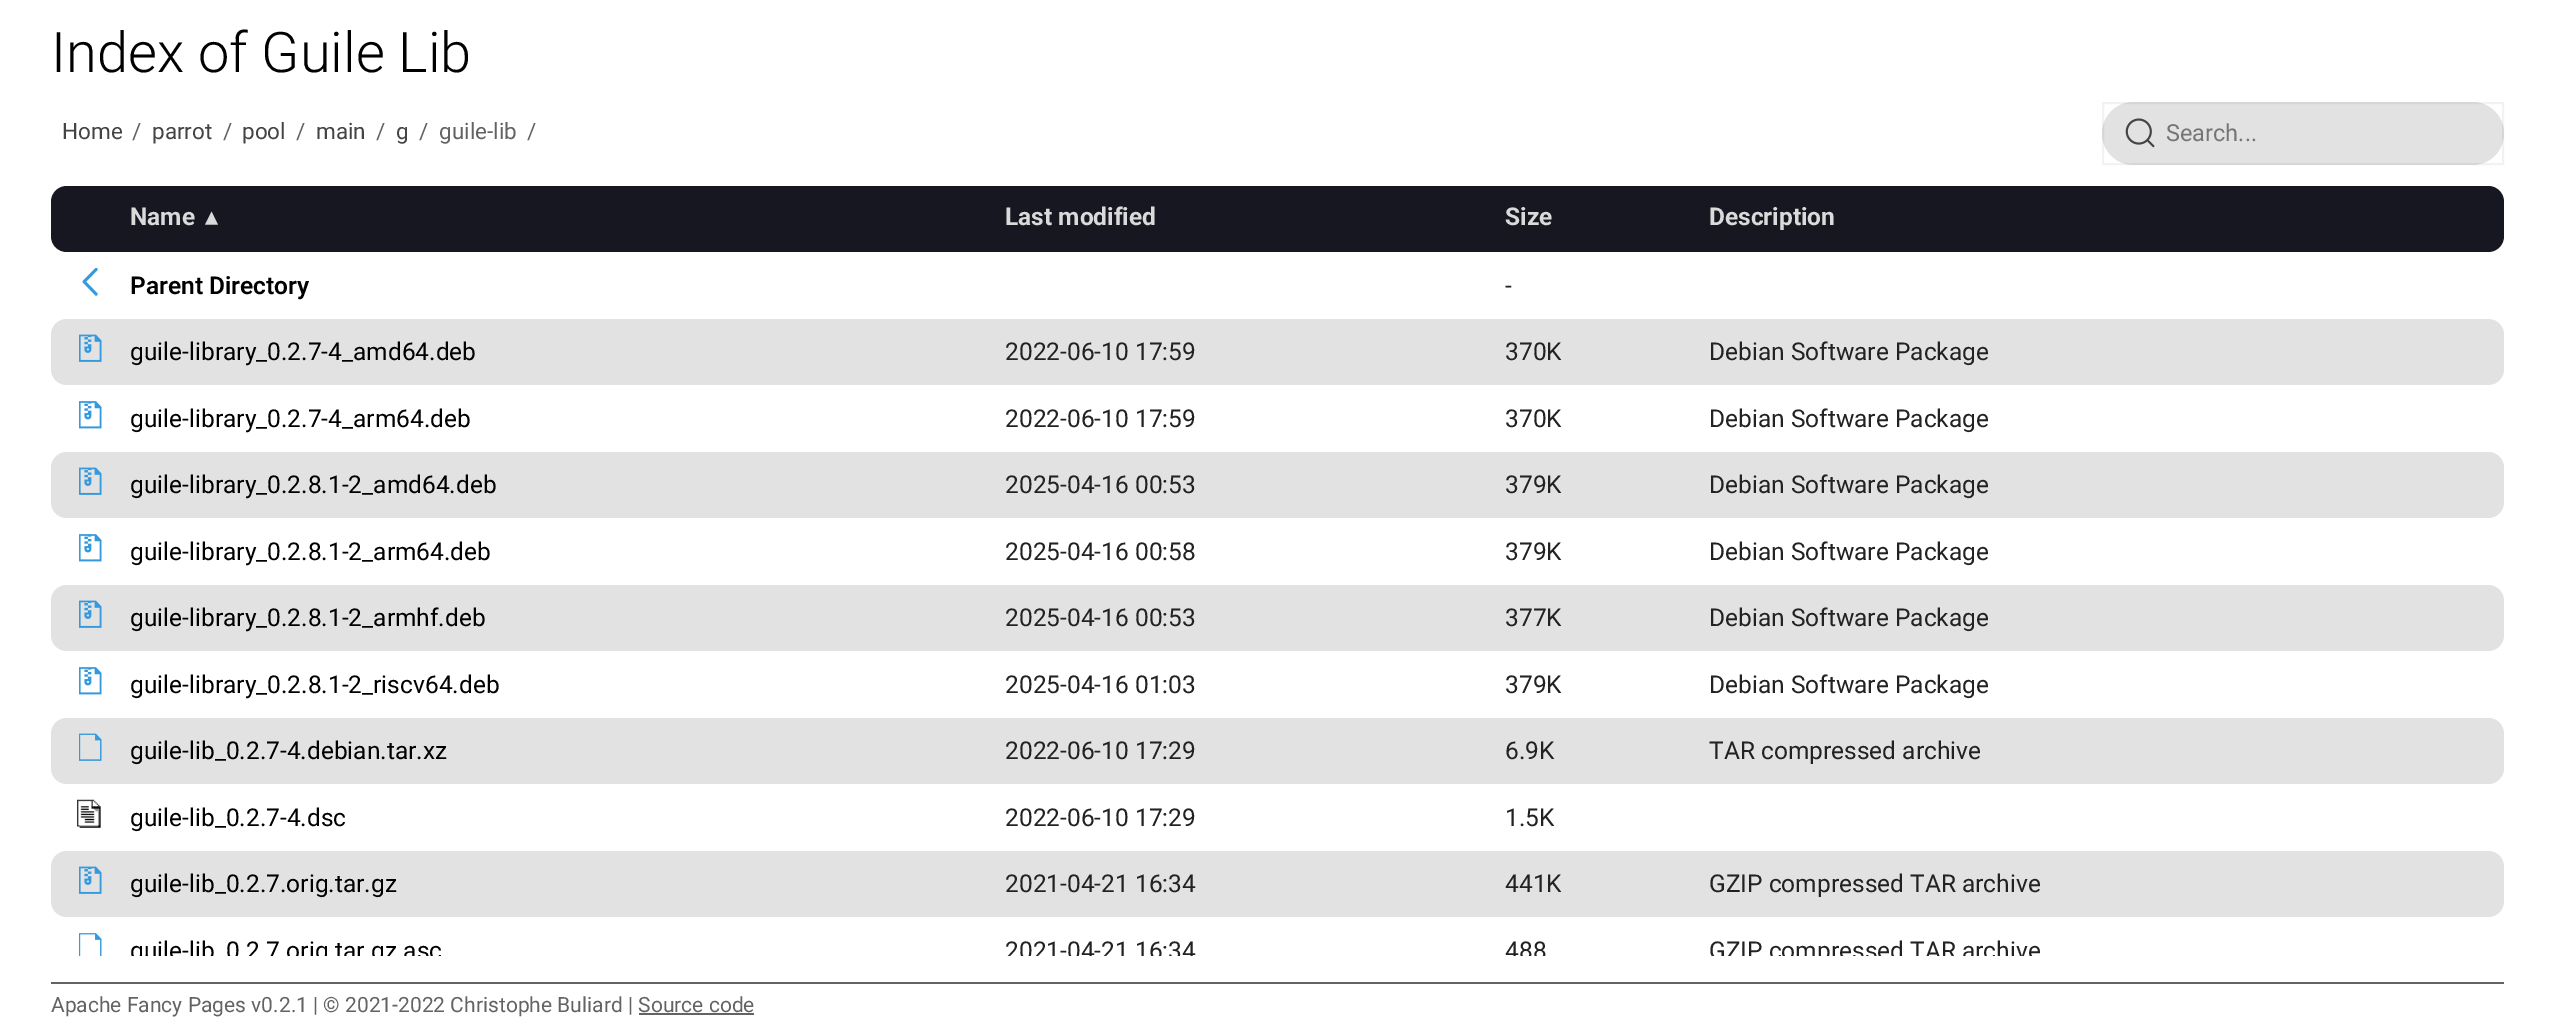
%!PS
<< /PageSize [2554 1036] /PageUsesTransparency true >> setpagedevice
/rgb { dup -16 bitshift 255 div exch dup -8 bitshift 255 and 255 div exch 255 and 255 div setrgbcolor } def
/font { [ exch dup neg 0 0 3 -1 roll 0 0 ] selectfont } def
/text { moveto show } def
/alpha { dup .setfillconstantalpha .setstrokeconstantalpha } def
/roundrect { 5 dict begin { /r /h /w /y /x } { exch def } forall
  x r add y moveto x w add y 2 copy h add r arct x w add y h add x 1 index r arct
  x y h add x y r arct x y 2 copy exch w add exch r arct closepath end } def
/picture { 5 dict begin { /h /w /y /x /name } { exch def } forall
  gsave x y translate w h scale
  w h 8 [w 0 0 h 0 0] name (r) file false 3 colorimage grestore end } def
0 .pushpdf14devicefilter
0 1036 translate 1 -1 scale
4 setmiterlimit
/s1 { /Roboto-Light 56 font 16#000000 rgb } def
/s2 { /Roboto-Regular 22.5 font 16#444444 rgb } def
/s3 { /Roboto-Regular 22.5 font 16#636363 rgb } def
/s4 { /Roboto-Regular 23.5 font 16#757575 rgb } def
/s5 { /Roboto-Bold 24.5 font 16#DADADA rgb } def
/s6 { /DejaVuSans-Bold 24.5 font 16#DADADA rgb } def
/s7 { /Roboto-SemiBold 24.5 font 16#000000 rgb } def
/s8 { /Roboto-Regular 24.5 font 16#222222 rgb } def
/s9 { /Roboto-Regular 24.5 font 16#000000 rgb } def
/s10 { /Roboto-Regular 21 font 16#636363 rgb } def
16#FFFFFF rgb
0 0 2554 1036 rectfill
s1
(Index of Guile Lib) 51 72 text
s2
(Home) 62 139 text
s3
(/) 132 139 text
s2
(parrot) 152 139 text
s3
(/) 223 139 text
s2
(pool) 242 139 text
s3
(/) 296 139 text
s2
(main) 316 139 text
s3
(/) 376 139 text
s2
(g) 396 139 text
s3
(/) 419 139 text
(guile-lib) 439 139 text
(/) 527 139 text
16#E3E2E2 rgb
2102 102 402 63 31.5 roundrect fill
0.05 alpha
16#000000 rgb
2 setlinewidth
2103 103 400 61 rectstroke
1 alpha
(pic1.raw) 2125 118 30 30 picture
s4
(Search...) 2166 141 text
16#161720 rgb
67 186 moveto 130 186 lineto 130 252 lineto 67 252 lineto 58 252 51 245 51 236 curveto 51 202 lineto 51 193 58 186 67 186 curveto closepath fill
130 186 1561 66 rectfill
s5
(Name) 130 225 text
s6
(▴) 205 225 text
s5
(Last modified) 1005 225 text
(Size) 1505 225 text
16#161720 rgb
1691 186 moveto 2488 186 lineto 2497 186 2504 193 2504 202 curveto 2504 236 lineto 2504 245 2497 252 2488 252 curveto 1691 252 lineto closepath fill
s5
(Description) 1709 225 text
(pic2.raw) 82 268 16 28 picture
s7
(Parent Directory) 130 294 text
s8
(-) 1505 294 text
16#E3E2E2 rgb
67 319 moveto 130 319 lineto 130 385 lineto 67 385 lineto 58 385 51 378 51 369 curveto 51 335 lineto 51 326 58 319 67 319 curveto closepath fill
(pic3.raw) 79 334 23 28 picture
130 319 1561 66 rectfill
s9
(guile-library_0.2.7-4_amd64.deb) 130 360 text
s8
(2022-06-10 17:59) 1005 360 text
(370K) 1505 360 text
16#E3E2E2 rgb
1691 319 moveto 2488 319 lineto 2497 319 2504 326 2504 335 curveto 2504 369 lineto 2504 378 2497 385 2488 385 curveto 1691 385 lineto closepath fill
s8
(Debian Software Package) 1709 360 text
(pic4.raw) 79 401 23 28 picture
s9
(guile-library_0.2.7-4_arm64.deb) 130 427 text
s8
(2022-06-10 17:59) 1005 427 text
(370K) 1505 427 text
(Debian Software Package) 1709 427 text
16#E3E2E2 rgb
67 452 moveto 130 452 lineto 130 518 lineto 67 518 lineto 58 518 51 511 51 502 curveto 51 468 lineto 51 459 58 452 67 452 curveto closepath fill
(pic3.raw) 79 467 23 28 picture
130 452 1561 66 rectfill
s9
(guile-library_0.2.8.1-2_amd64.deb) 130 493 text
s8
(2025-04-16 00:53) 1005 493 text
(379K) 1505 493 text
16#E3E2E2 rgb
1691 452 moveto 2488 452 lineto 2497 452 2504 459 2504 468 curveto 2504 502 lineto 2504 511 2497 518 2488 518 curveto 1691 518 lineto closepath fill
s8
(Debian Software Package) 1709 493 text
(pic4.raw) 79 534 23 28 picture
s9
(guile-library_0.2.8.1-2_arm64.deb) 130 560 text
s8
(2025-04-16 00:58) 1005 560 text
(379K) 1505 560 text
(Debian Software Package) 1709 560 text
16#E3E2E2 rgb
67 585 moveto 130 585 lineto 130 651 lineto 67 651 lineto 58 651 51 644 51 635 curveto 51 601 lineto 51 592 58 585 67 585 curveto closepath fill
(pic3.raw) 79 600 23 28 picture
130 585 1561 66 rectfill
s9
(guile-library_0.2.8.1-2_armhf.deb) 130 626 text
s8
(2025-04-16 00:53) 1005 626 text
(377K) 1505 626 text
16#E3E2E2 rgb
1691 585 moveto 2488 585 lineto 2497 585 2504 592 2504 601 curveto 2504 635 lineto 2504 644 2497 651 2488 651 curveto 1691 651 lineto closepath fill
s8
(Debian Software Package) 1709 626 text
(pic4.raw) 79 667 23 28 picture
s9
(guile-library_0.2.8.1-2_riscv64.deb) 130 693 text
s8
(2025-04-16 01:03) 1005 693 text
(379K) 1505 693 text
(Debian Software Package) 1709 693 text
16#E3E2E2 rgb
67 718 moveto 130 718 lineto 130 784 lineto 67 784 lineto 58 784 51 777 51 768 curveto 51 734 lineto 51 725 58 718 67 718 curveto closepath fill
(pic5.raw) 79 733 23 28 picture
130 718 1561 66 rectfill
s9
(guile-lib_0.2.7-4.debian.tar.xz) 130 759 text
s8
(2022-06-10 17:29) 1005 759 text
(6.9K) 1505 759 text
16#E3E2E2 rgb
1691 718 moveto 2488 718 lineto 2497 718 2504 725 2504 734 curveto 2504 768 lineto 2504 777 2497 784 2488 784 curveto 1691 784 lineto closepath fill
s8
(TAR compressed archive) 1709 759 text
(pic6.raw) 77 799 24 29 picture
s9
(guile-lib_0.2.7-4.dsc) 130 826 text
s8
(2022-06-10 17:29) 1005 826 text
(1.5K) 1505 826 text
16#E3E2E2 rgb
67 851 moveto 130 851 lineto 130 917 lineto 67 917 lineto 58 917 51 910 51 901 curveto 51 867 lineto 51 858 58 851 67 851 curveto closepath fill
(pic3.raw) 79 866 23 28 picture
130 851 1561 66 rectfill
s9
(guile-lib_0.2.7.orig.tar.gz) 130 892 text
s8
(2021-04-21 16:34) 1005 892 text
(441K) 1505 892 text
16#E3E2E2 rgb
1691 851 moveto 2488 851 lineto 2497 851 2504 858 2504 867 curveto 2504 901 lineto 2504 910 2497 917 2488 917 curveto 1691 917 lineto closepath fill
s8
(GZIP compressed TAR archive) 1709 892 text
(pic7.raw) 79 933 23 23 picture
s9
(guile-lib_0.2.7.orig.tar.gz.asc) 130 959 text
s8
(2021-04-21 16:34) 1005 959 text
(488) 1505 959 text
(GZIP compressed TAR archive) 1709 959 text
16#FFFFFF rgb
131 956 1909 9 rectfill
16#636363 rgb
51 982 2453 2 rectfill
s10
(Apache Fancy Pages v0.2.1 | © 2021-2022 Christophe Buliard | Source code) 51 1012 text
639 1013 115 2 rectfill
.poppdf14devicefilter showpage
